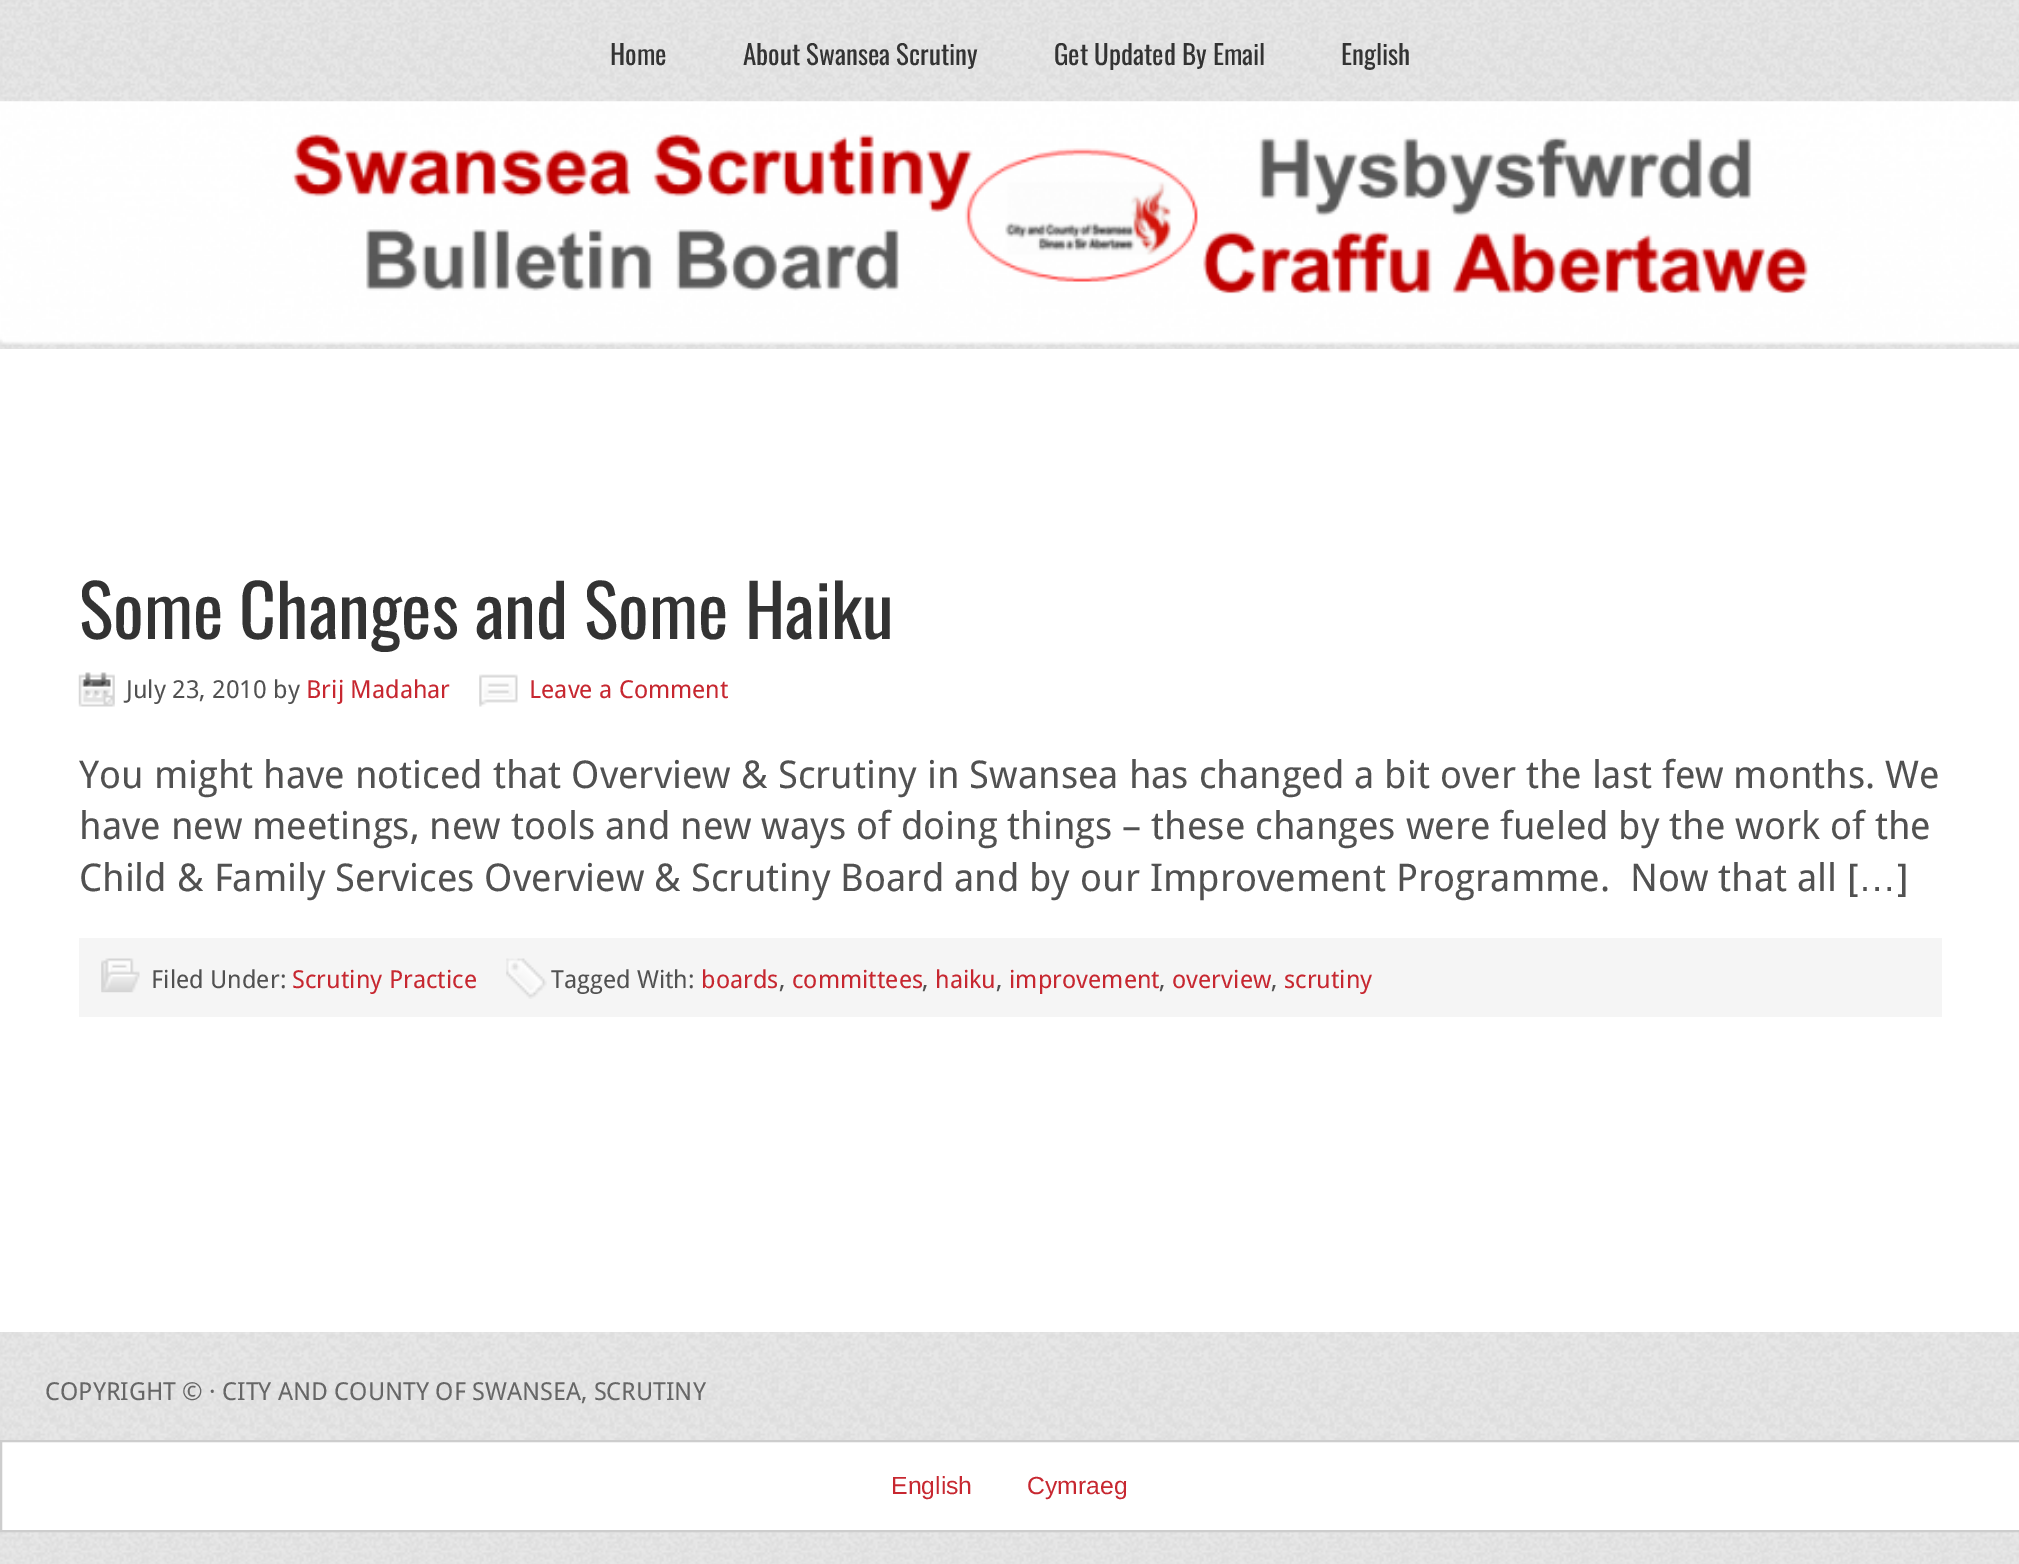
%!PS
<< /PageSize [2019 1564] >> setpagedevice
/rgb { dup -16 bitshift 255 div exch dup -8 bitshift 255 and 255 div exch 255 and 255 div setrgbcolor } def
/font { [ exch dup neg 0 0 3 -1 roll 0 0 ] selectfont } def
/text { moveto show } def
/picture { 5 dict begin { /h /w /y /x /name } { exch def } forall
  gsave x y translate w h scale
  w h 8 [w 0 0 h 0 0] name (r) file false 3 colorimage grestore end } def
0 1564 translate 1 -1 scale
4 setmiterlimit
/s1 { /Oswald-Regular 27 font 16#333333 rgb } def
/s2 { /Oswald-Regular 72 font 16#333333 rgb } def
/s3 { /DroidSans-Regular 24.75 font 16#515151 rgb } def
/s4 { /DroidSans-Regular 24.75 font 16#C72730 rgb } def
/s5 { /DroidSans-Regular 38.25 font 16#515151 rgb } def
/s6 { /LiberationSans-Regular 38.25 font 16#515151 rgb } def
/s7 { /DroidSans-Regular 24.75 font 16#666666 rgb } def
/s8 { /LiberationSans-Regular 24.75 font 16#C72730 rgb } def
16#FFFFFF rgb
0 0 2019 1564 rectfill
(pic1.raw) 0 0 2019 1564 picture
s1
(Home) 610 65 text
(About Swansea Scrutiny) 743 65 text
(Get Updated By Email) 1054 65 text
(English) 1341 65 text
(pic2.raw) 0 101 2019 244 picture
16#FFFFFF rgb
0 349 2019 983 rectfill
s2
(Some Changes and Some Haiku) 79 639 text
(pic3.raw) 78 672 37 35 picture
s3
(July 23, 2010 by) 126 698 text
s4
(Brij Madahar) 306 698 text
(pic4.raw) 479 674 39 33 picture
(Leave a Comment) 529 698 text
s5
(You might have noticed that Overview & Scrutiny in Swansea has changed a bit over the last few months. We) 79 788 text
(have new meetings, new tools and new ways of doing things – these changes were fueled by the work of the) 79 839 text
(Child & Family Services Overview & Scrutiny Board and by our Improvement Programme.  Now that all [) 79 891 text
s6
(…) 1858 891 text
s5
(]) 1897 891 text
16#F5F5F5 rgb
79 938 1863 79 rectfill
(pic5.raw) 101 958 39 35 picture
s3
(Filed Under:) 151 988 text
s4
(Scrutiny Practice) 292 988 text
(pic6.raw) 506 958 41 41 picture
s3
(Tagged With:) 551 988 text
s4
(boards) 701 988 text
s3
(,) 779 988 text
s4
(committees) 792 988 text
s3
(,) 922 988 text
s4
(haiku) 935 988 text
s3
(,) 996 988 text
s4
(improvement) 1009 988 text
s3
(,) 1159 988 text
s4
(overview) 1172 988 text
s3
(,) 1271 988 text
s4
(scrutiny) 1284 988 text
s7
(COPYRIGHT © · CITY AND COUNTY OF SWANSEA, SCRUTINY) 45 1400 text
16#FFFFFF rgb
1 1441 moveto 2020 1441 lineto 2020 1531 lineto 1 1531 lineto closepath gsave fill grestore
16#CDCDCD rgb
2 setlinewidth
stroke
s8
(English) 891 1494 text
(Cymraeg) 1027 1494 text
showpage
